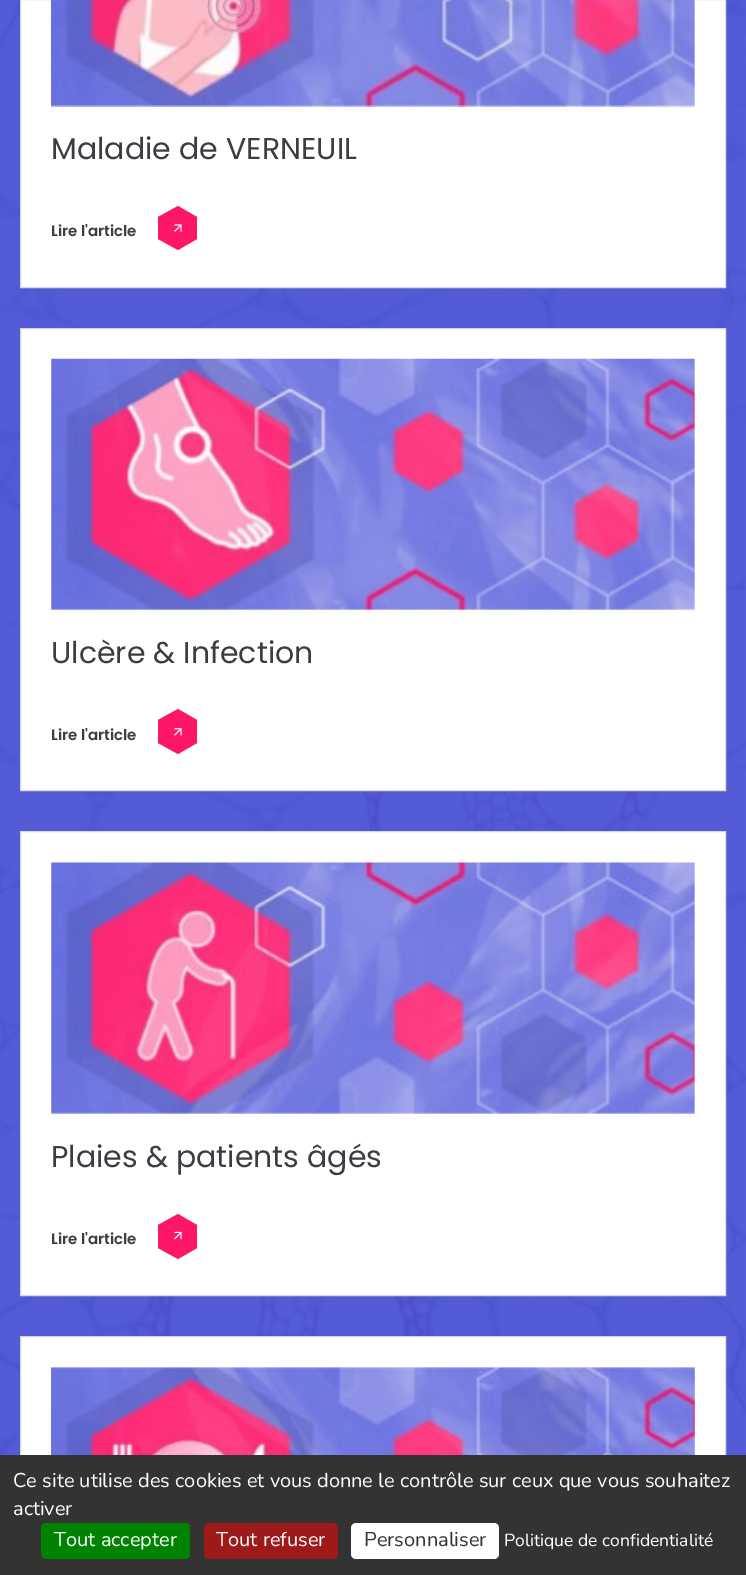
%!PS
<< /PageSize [746 1575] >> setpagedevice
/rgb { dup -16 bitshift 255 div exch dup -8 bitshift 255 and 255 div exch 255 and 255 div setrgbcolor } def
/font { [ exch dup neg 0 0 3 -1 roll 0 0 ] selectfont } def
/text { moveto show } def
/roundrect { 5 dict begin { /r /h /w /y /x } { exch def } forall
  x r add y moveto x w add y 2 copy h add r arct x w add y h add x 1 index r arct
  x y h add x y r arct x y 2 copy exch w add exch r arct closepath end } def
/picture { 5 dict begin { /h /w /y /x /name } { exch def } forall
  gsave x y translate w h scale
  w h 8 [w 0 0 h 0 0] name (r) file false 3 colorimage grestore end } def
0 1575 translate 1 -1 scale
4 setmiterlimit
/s1 { /Poppins-Regular 30 font 16#3A3E42 rgb } def
/s2 { /Poppins-SemiBold 15 font 16#3A3E42 rgb } def
/s3 { /Nunito-ExtraLight 20 font 16#FFFFFF rgb } def
/s4 { /Nunito-ExtraLight 20 font 16#333333 rgb } def
/s5 { /Nunito-ExtraLight 17.5 font 16#FFFFFF rgb } def
16#FFFFFF rgb
0 0 746 1575 rectfill
(pic1.raw) 0 0 746 1455 picture
20.5 -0.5 moveto 725.5 -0.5 lineto 725.5 287.5 lineto 20.5 287.5 lineto closepath gsave fill grestore
16#D8D8D9 rgb
stroke
(pic2.raw) 51 0 644 107 picture
s1
(Maladie de VERNEUIL) 51 159 text
s2
(Lire l'article) 51 236 text
16#FD1769 rgb
178 206 moveto 197 217 lineto 197 239 lineto 178 250 lineto 158 239 lineto 158 217 lineto closepath fill
(pic3.raw) 174 224 8 8 picture
16#FFFFFF rgb
20.5 328.5 moveto 725.5 328.5 lineto 725.5 790.5 lineto 20.5 790.5 lineto closepath gsave fill grestore
16#D8D8D9 rgb
stroke
(pic4.raw) 51 358 644 252 picture
s1
(Ulcère & Infection) 51 663 text
s2
(Lire l'article) 51 740 text
16#FD1769 rgb
178 709 moveto 197 720 lineto 197 743 lineto 178 754 lineto 158 743 lineto 158 720 lineto closepath fill
(pic5.raw) 174 728 8 8 picture
16#FFFFFF rgb
20.5 831.5 moveto 725.5 831.5 lineto 725.5 1295.5 lineto 20.5 1295.5 lineto closepath gsave fill grestore
16#D8D8D9 rgb
stroke
(pic6.raw) 51 862 644 252 picture
s1
(Plaies & patients âgés) 51 1167 text
s2
(Lire l'article) 51 1244 text
16#FD1769 rgb
178 1214 moveto 197 1225 lineto 197 1248 lineto 178 1259 lineto 158 1248 lineto 158 1225 lineto closepath fill
(pic7.raw) 174 1231 8 9 picture
16#FFFFFF rgb
21 1337 704 118 rectfill
16#D8D8D9 rgb
20.5 1336.5 705 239 rectstroke
(pic8.raw) 51 1367 644 88 picture
16#333333 rgb
0 1455 746 120 rectfill
s3
(Ce site utilise des cookies et vous donne le contrôle sur ceux que vous souhaitez) 13 1487 text
(activer) 13 1515 text
16#008300 rgb
41 1523 149 36 5 roundrect fill
s3
(Tout accepter) 54 1546 text
16#9C1A1A rgb
204 1523 134 36 5 roundrect fill
s3
(Tout refuser) 216 1546 text
351 1523 148 36 5 roundrect fill
s4
(Personnaliser) 364 1546 text
s5
(Politique de confidentialité) 504 1546 text
showpage
